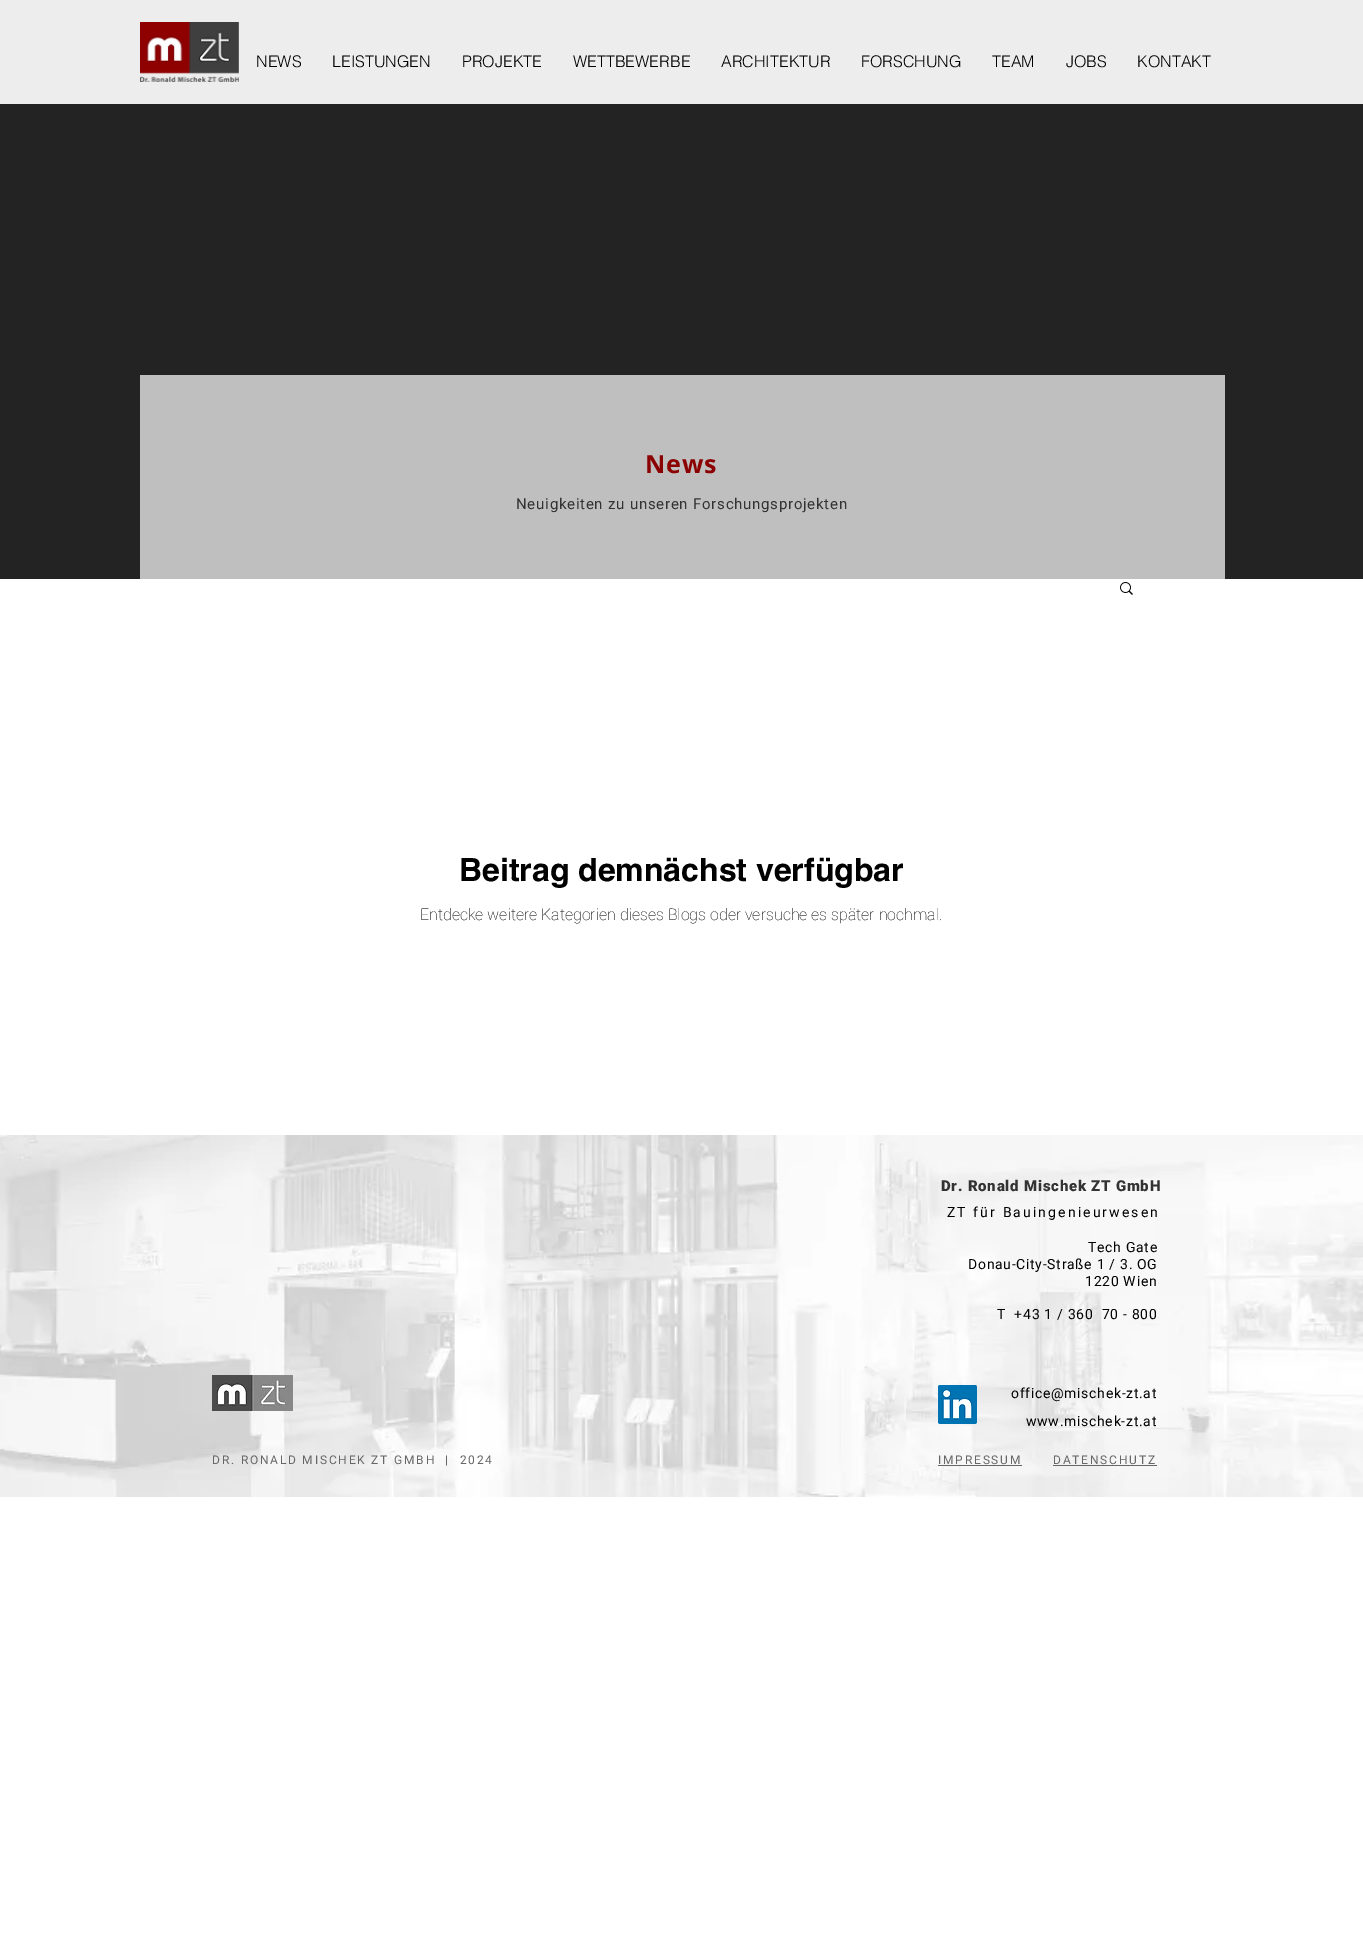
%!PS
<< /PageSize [1363 1940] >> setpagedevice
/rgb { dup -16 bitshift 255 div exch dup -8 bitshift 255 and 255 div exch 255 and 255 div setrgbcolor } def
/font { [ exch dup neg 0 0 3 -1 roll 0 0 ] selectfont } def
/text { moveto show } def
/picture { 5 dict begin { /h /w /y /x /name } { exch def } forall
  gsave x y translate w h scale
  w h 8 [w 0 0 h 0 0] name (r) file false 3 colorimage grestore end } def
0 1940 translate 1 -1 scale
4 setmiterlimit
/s1 { /helvetica-Light 16 font 16#000000 rgb } def
/s2 { /helvetica-Bold 32 font 16#000000 rgb } def
/s3 { /Roboto-Thin 16 font 16#000000 rgb } def
16#FFFFFF rgb
0 0 1363 1940 rectfill
16#EDEDED rgb
0 0 1363 104 rectfill
(pic1.raw) 140 22 99 60 picture
s1
(NEWS) 256 67 text
(LEISTUNGEN) 332 67 text
(PROJEKTE) 462 67 text
(WETTBEWERBE) 573 67 text
(ARCHITEKTUR) 721 67 text
(FORSCHUNG) 861 67 text
(TEAM) 992 67 text
(JOBS) 1066 67 text
(KONTAKT) 1137 67 text
16#242323 rgb
0 104 1363 475 rectfill
16#BFBFBF rgb
140 375 1085 204 rectfill
/OpenSans-Bold 25 font
16#8B0000 rgb
645 473 moveto 1 0 (News) ashow
/Roboto-Regular 15 font
16#333333 rgb
516 509 moveto 0.75 0 (Neuigkeiten zu unseren Forschungsprojekten) ashow
(pic2.raw) 1120 582 13 13 picture
s2
(Beitrag demnächst verfügbar) 459 881 text
s3
(Entdecke weitere Kategorien dieses Blogs oder versuche es später nochmal.) 420 920 text
(pic3.raw) 0 1135 1363 362 picture
/Roboto-Black 15 font
16#333333 rgb
941 1191 moveto 0.75 0 (Dr. Ronald Mischek ZT GmbH) ashow
/Roboto-Regular 14 font
16#000000 rgb
947 1217 moveto 2.1 0 (ZT für Bauingenieurwesen) ashow
1088 1252 moveto 0.7 0 (Tech Gate) ashow
968 1269 moveto 0.7 0 (Donau-City-Straße 1 / 3. OG) ashow
1085 1286 moveto 0.7 0 (1220 Wien) ashow
997 1319 moveto 0.7 0 (T  +43 1 / 360  70 - 800) ashow
(pic4.raw) 212 1375 81 36 picture
(pic5.raw) 938 1385 39 39 picture
1011 1398 moveto 0.7 0 (office@mischek-zt.at) ashow
1026 1426 moveto 0.7 0 (www.mischek-zt.at) ashow
/Roboto-Regular 12 font
16#666666 rgb
212 1464 moveto 1.8 0 (DR. RONALD MISCHEK ZT GMBH  |  2024) ashow
938 1464 moveto 1.8 0 (IMPRESSUM) ashow
938 1465 84 1 rectfill
1053 1464 moveto 1.8 0 (DATENSCHUTZ) ashow
1053 1465 104 1 rectfill
showpage
